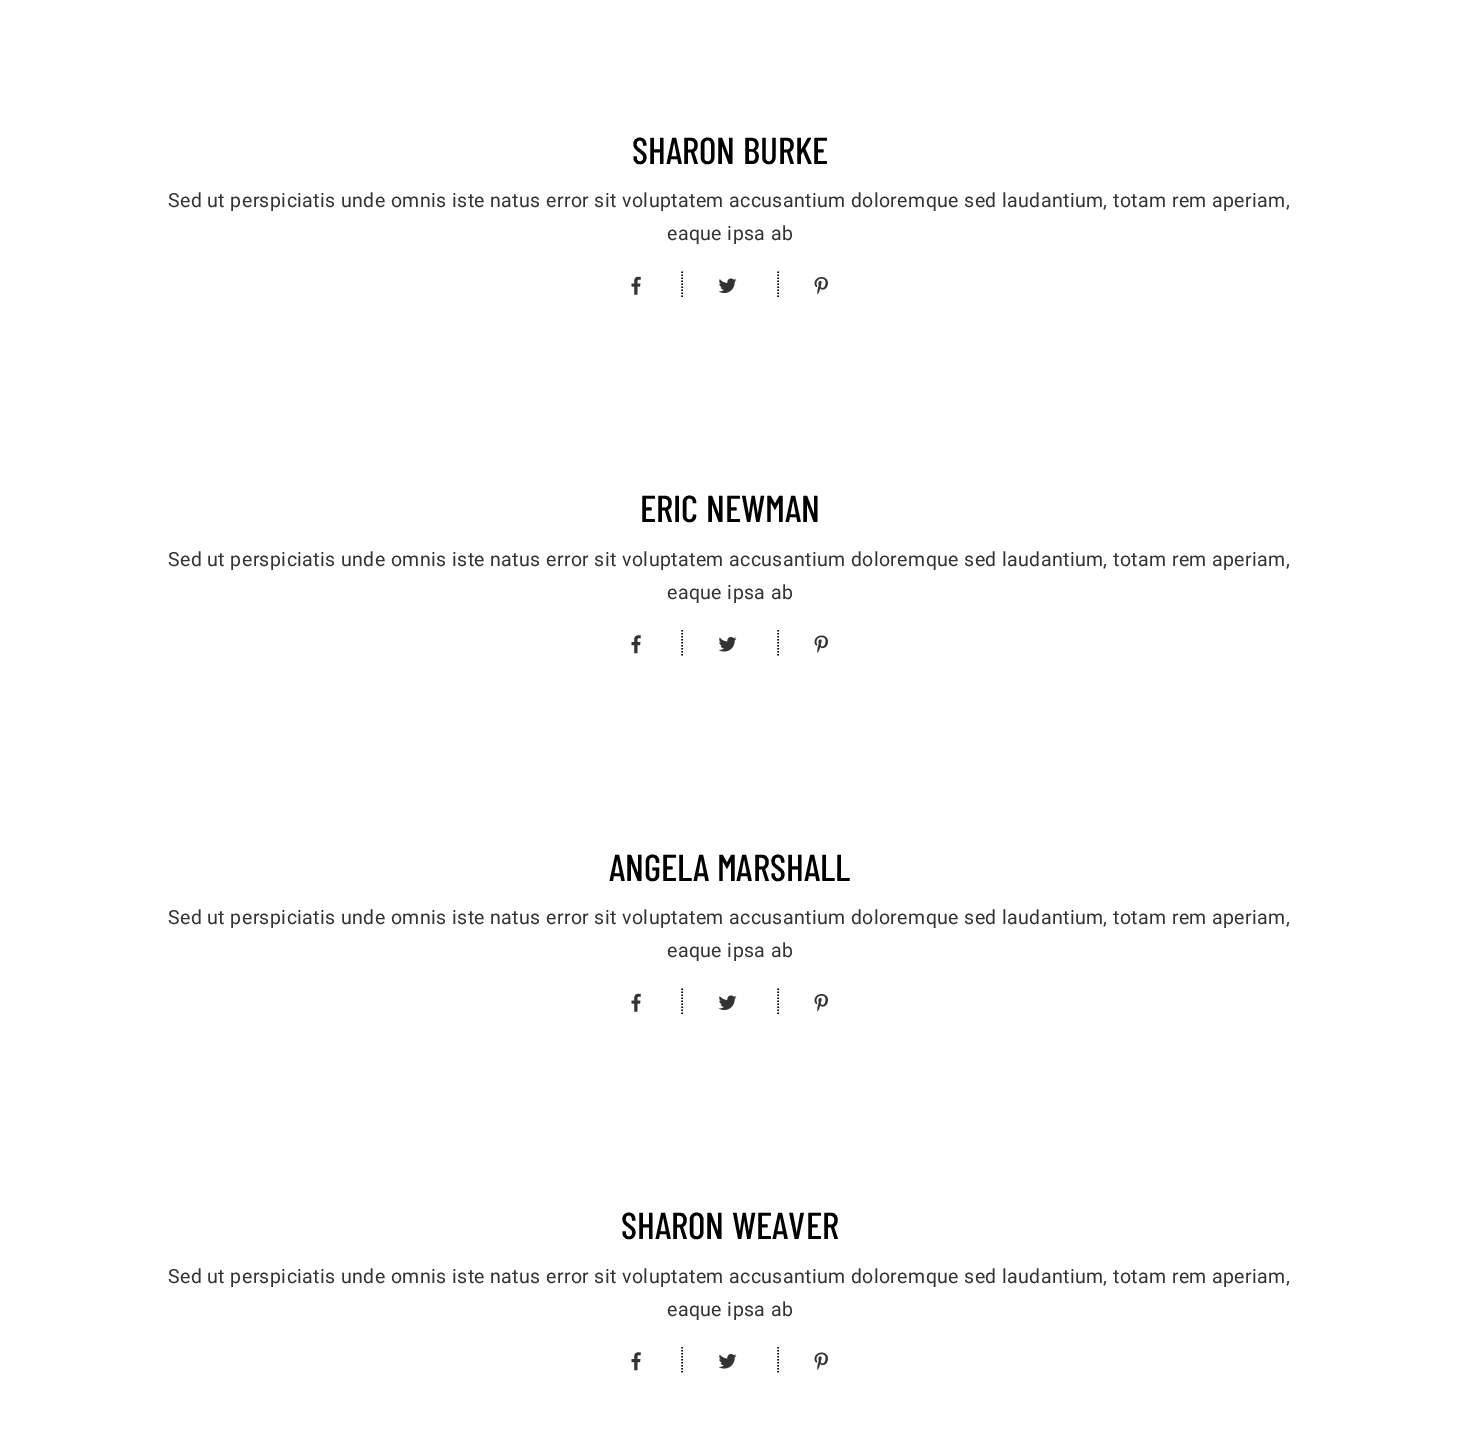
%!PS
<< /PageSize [1459 1453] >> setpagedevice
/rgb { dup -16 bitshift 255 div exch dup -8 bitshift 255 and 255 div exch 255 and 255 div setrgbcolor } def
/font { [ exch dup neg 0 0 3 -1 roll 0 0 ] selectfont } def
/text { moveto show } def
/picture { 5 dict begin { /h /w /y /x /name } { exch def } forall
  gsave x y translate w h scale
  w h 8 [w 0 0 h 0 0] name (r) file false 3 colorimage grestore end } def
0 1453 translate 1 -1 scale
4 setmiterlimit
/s1 { /BarlowCondensed-Medium 37.5 font 16#000000 rgb } def
16#FFFFFF rgb
0 0 1459 1453 rectfill
s1
(SHARON BURKE) 632 164 text
/Heebo-Regular 19.5 font
16#333333 rgb
168 207 moveto 0.39 0 (Sed ut perspiciatis unde omnis iste natus error sit voluptatem accusantium doloremque sed laudantium, totam rem aperiam,) ashow
667 240 moveto 0.39 0 (eaque ipsa ab) ashow
16#000000 rgb
1.5 setlinewidth
[1.5 1.5] 0 setdash
682 271.5 moveto 682 298.5 lineto stroke
(pic1.raw) 631 276 10 19 picture
778 271.5 moveto 778 298.5 lineto stroke
(pic2.raw) 718 278 19 16 picture
(pic3.raw) 814 277 14 18 picture
s1
(ERIC NEWMAN) 640 522 text
/Heebo-Regular 19.5 font
16#333333 rgb
168 566 moveto 0.39 0 (Sed ut perspiciatis unde omnis iste natus error sit voluptatem accusantium doloremque sed laudantium, totam rem aperiam,) ashow
667 599 moveto 0.39 0 (eaque ipsa ab) ashow
16#000000 rgb
682 630 moveto 682 657 lineto stroke
(pic4.raw) 631 635 10 19 picture
778 630 moveto 778 657 lineto stroke
(pic5.raw) 718 637 19 15 picture
(pic6.raw) 814 635 14 18 picture
s1
(ANGELA MARSHALL) 609 881 text
/Heebo-Regular 19.5 font
16#333333 rgb
168 924 moveto 0.39 0 (Sed ut perspiciatis unde omnis iste natus error sit voluptatem accusantium doloremque sed laudantium, totam rem aperiam,) ashow
667 957 moveto 0.39 0 (eaque ipsa ab) ashow
16#000000 rgb
682 988.5 moveto 682 1015.5 lineto stroke
(pic1.raw) 631 993 10 19 picture
778 988.5 moveto 778 1015.5 lineto stroke
(pic2.raw) 718 995 19 16 picture
(pic3.raw) 814 994 14 18 picture
s1
(SHARON WEAVER) 621 1239 text
/Heebo-Regular 19.5 font
16#333333 rgb
168 1283 moveto 0.39 0 (Sed ut perspiciatis unde omnis iste natus error sit voluptatem accusantium doloremque sed laudantium, totam rem aperiam,) ashow
667 1316 moveto 0.39 0 (eaque ipsa ab) ashow
16#000000 rgb
682 1347 moveto 682 1374 lineto stroke
(pic4.raw) 631 1352 10 19 picture
778 1347 moveto 778 1374 lineto stroke
(pic5.raw) 718 1354 19 15 picture
(pic6.raw) 814 1352 14 18 picture
showpage
